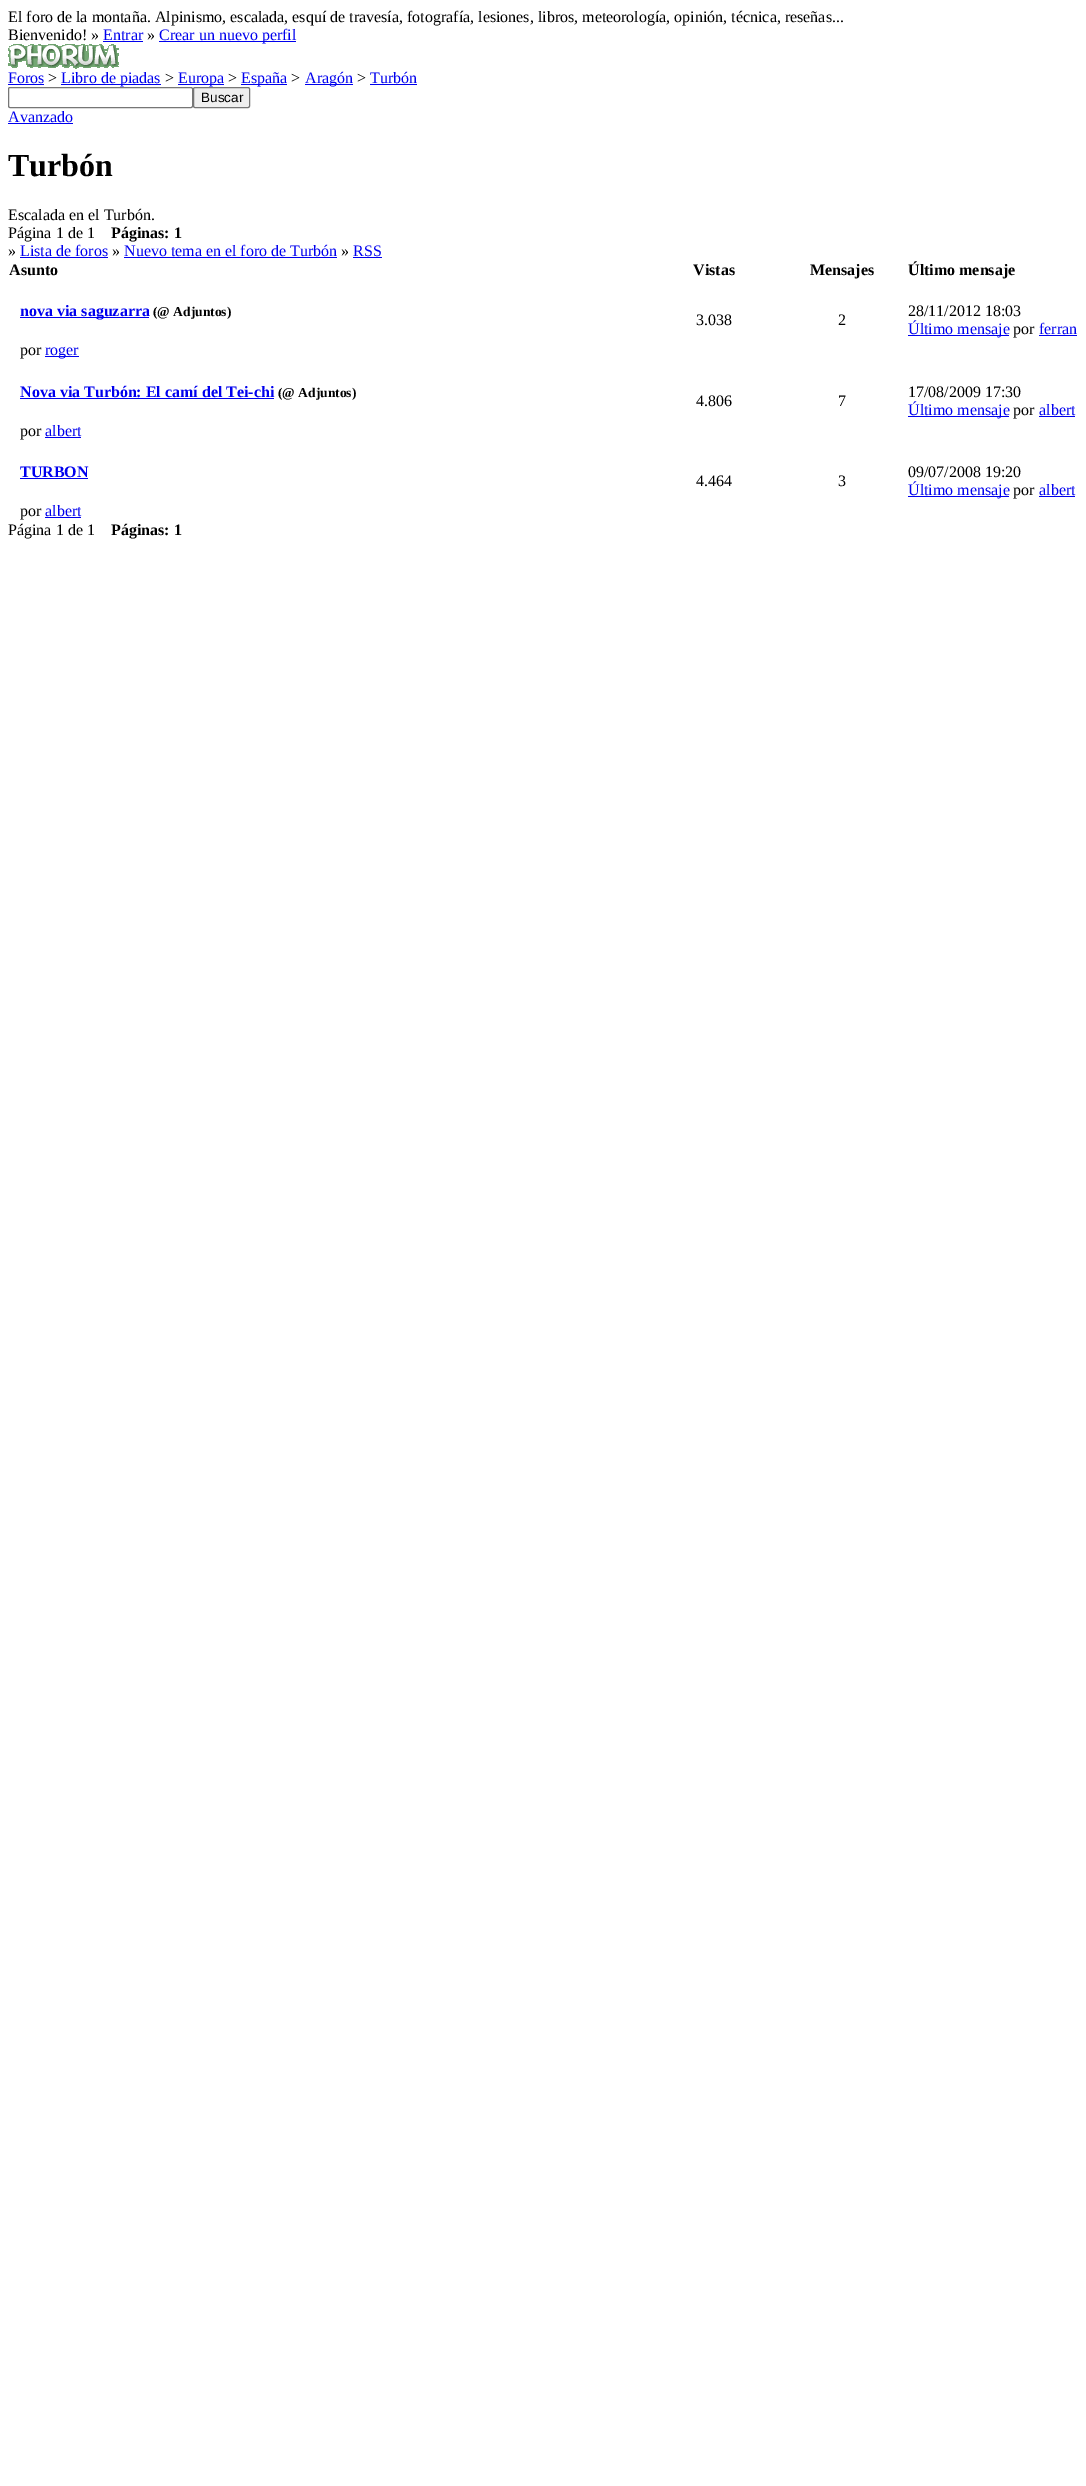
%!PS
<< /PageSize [1086 2486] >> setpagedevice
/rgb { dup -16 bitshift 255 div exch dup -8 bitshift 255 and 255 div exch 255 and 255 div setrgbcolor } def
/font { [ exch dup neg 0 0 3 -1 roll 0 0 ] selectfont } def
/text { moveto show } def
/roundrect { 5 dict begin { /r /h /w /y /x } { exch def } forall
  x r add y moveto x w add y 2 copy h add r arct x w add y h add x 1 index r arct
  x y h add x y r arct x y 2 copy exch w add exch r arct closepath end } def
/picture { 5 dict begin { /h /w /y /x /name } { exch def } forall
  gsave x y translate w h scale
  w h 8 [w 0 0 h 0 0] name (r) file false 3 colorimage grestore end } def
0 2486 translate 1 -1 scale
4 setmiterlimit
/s1 { /LiberationSerif-Regular 16 font 16#000000 rgb } def
/s2 { /LiberationSerif-Regular 16 font 16#0000EE rgb } def
/s3 { /LiberationSans-Regular 13.5 font 16#000000 rgb } def
/s4 { /LiberationSerif-Bold 32 font 16#000000 rgb } def
/s5 { /LiberationSerif-Bold 16 font 16#000000 rgb } def
/s6 { /LiberationSerif-Bold 16 font 16#0000EE rgb } def
/s7 { /LiberationSerif-Bold 13.5 font 16#000000 rgb } def
16#FFFFFF rgb
0 0 1086 2486 rectfill
s1
(El foro de la montaña. Alpinismo, escalada, esquí de travesía, fotografía, lesiones, libros, meteorología, opinión, técnica, reseñas...) 8 22 text
(Bienvenido! ») 8 40 text
s2
(Entrar) 103 40 text
103 41 40 1 rectfill
s1
(») 147 40 text
16#0000EE rgb
159 41 137 1 rectfill
(Crear un nuevo perfil) 159 40 text
(pic1.raw) 8 44 111 25 picture
(Foros) 8 83 text
8 84 36 1 rectfill
s1
(>) 48 83 text
16#0000EE rgb
61 84 100 1 rectfill
(Libro de piadas) 61 83 text
s1
(>) 165 83 text
16#0000EE rgb
178 84 46 1 rectfill
(Europa) 178 83 text
s1
(>) 228 83 text
16#0000EE rgb
241 84 46 1 rectfill
(España) 241 83 text
s1
(>) 291 83 text
16#0000EE rgb
305 84 48 1 rectfill
(Aragón) 305 83 text
s1
(>) 357 83 text
s2
(Turbón) 370 83 text
370 84 47 1 rectfill
16#767676 rgb
8.5 87.5 184 20 1.5 roundrect stroke
16#EFEFEF rgb
193.5 87.5 56 20 1.5 roundrect gsave fill grestore
16#767676 rgb
stroke
s3
(Buscar) 201 102 text
s2
(Avanzado) 8 122 text
8 123 65 1 rectfill
s4
(Turbón) 8 176 text
s1
(Escalada en el Turbón.) 8 220 text
(Página 1 de 1) 8 238 text
s5
(Páginas: 1) 111 238 text
s1
(») 8 256 text
s2
(Lista de foros) 20 256 text
20 257 88 1 rectfill
s1
(») 112 256 text
s2
(Nuevo tema en el foro de Turbón) 124 256 text
124 257 213 1 rectfill
s1
(») 341 256 text
s2
(RSS) 353 256 text
353 257 29 1 rectfill
s5
(Asunto) 9 275 text
(Vistas) 693 275 text
(Mensajes) 810 275 text
(Último mensaje) 908 275 text
16#0000EE rgb
20 317 129 1 rectfill
(nova via saguzarra) 20 316 text
s7
(\(@ Adjuntos\)) 153 316 text
s1
(por) 20 355 text
16#0000EE rgb
45 356 34 1 rectfill
(roger) 45 355 text
s1
(3.038) 696 325 text
(2) 838 325 text
(28/11/2012 18:03) 908 316 text
16#0000EE rgb
908 335 101 1 rectfill
(Último mensaje) 908 334 text
s1
(por) 1013 334 text
s2
(ferran) 1039 334 text
1039 335 38 1 rectfill
s6
(Nova via Turbón: El camí del Tei-chi) 20 397 text
20 398 254 1 rectfill
s7
(\(@ Adjuntos\)) 278 397 text
s1
(por) 20 436 text
s2
(albert) 45 436 text
45 437 36 1 rectfill
s1
(4.806) 696 406 text
(7) 838 406 text
(17/08/2009 17:30) 908 397 text
16#0000EE rgb
908 416 101 1 rectfill
(Último mensaje) 908 415 text
s1
(por) 1013 415 text
s2
(albert) 1039 415 text
1039 416 36 1 rectfill
s6
(TURBON) 20 477 text
20 478 68 1 rectfill
s1
(por) 20 516 text
s2
(albert) 45 516 text
45 517 36 1 rectfill
s1
(4.464) 696 486 text
(3) 838 486 text
(09/07/2008 19:20) 908 477 text
16#0000EE rgb
908 496 101 1 rectfill
(Último mensaje) 908 495 text
s1
(por) 1013 495 text
s2
(albert) 1039 495 text
1039 496 36 1 rectfill
s1
(Página 1 de 1) 8 535 text
s5
(Páginas: 1) 111 535 text
showpage
